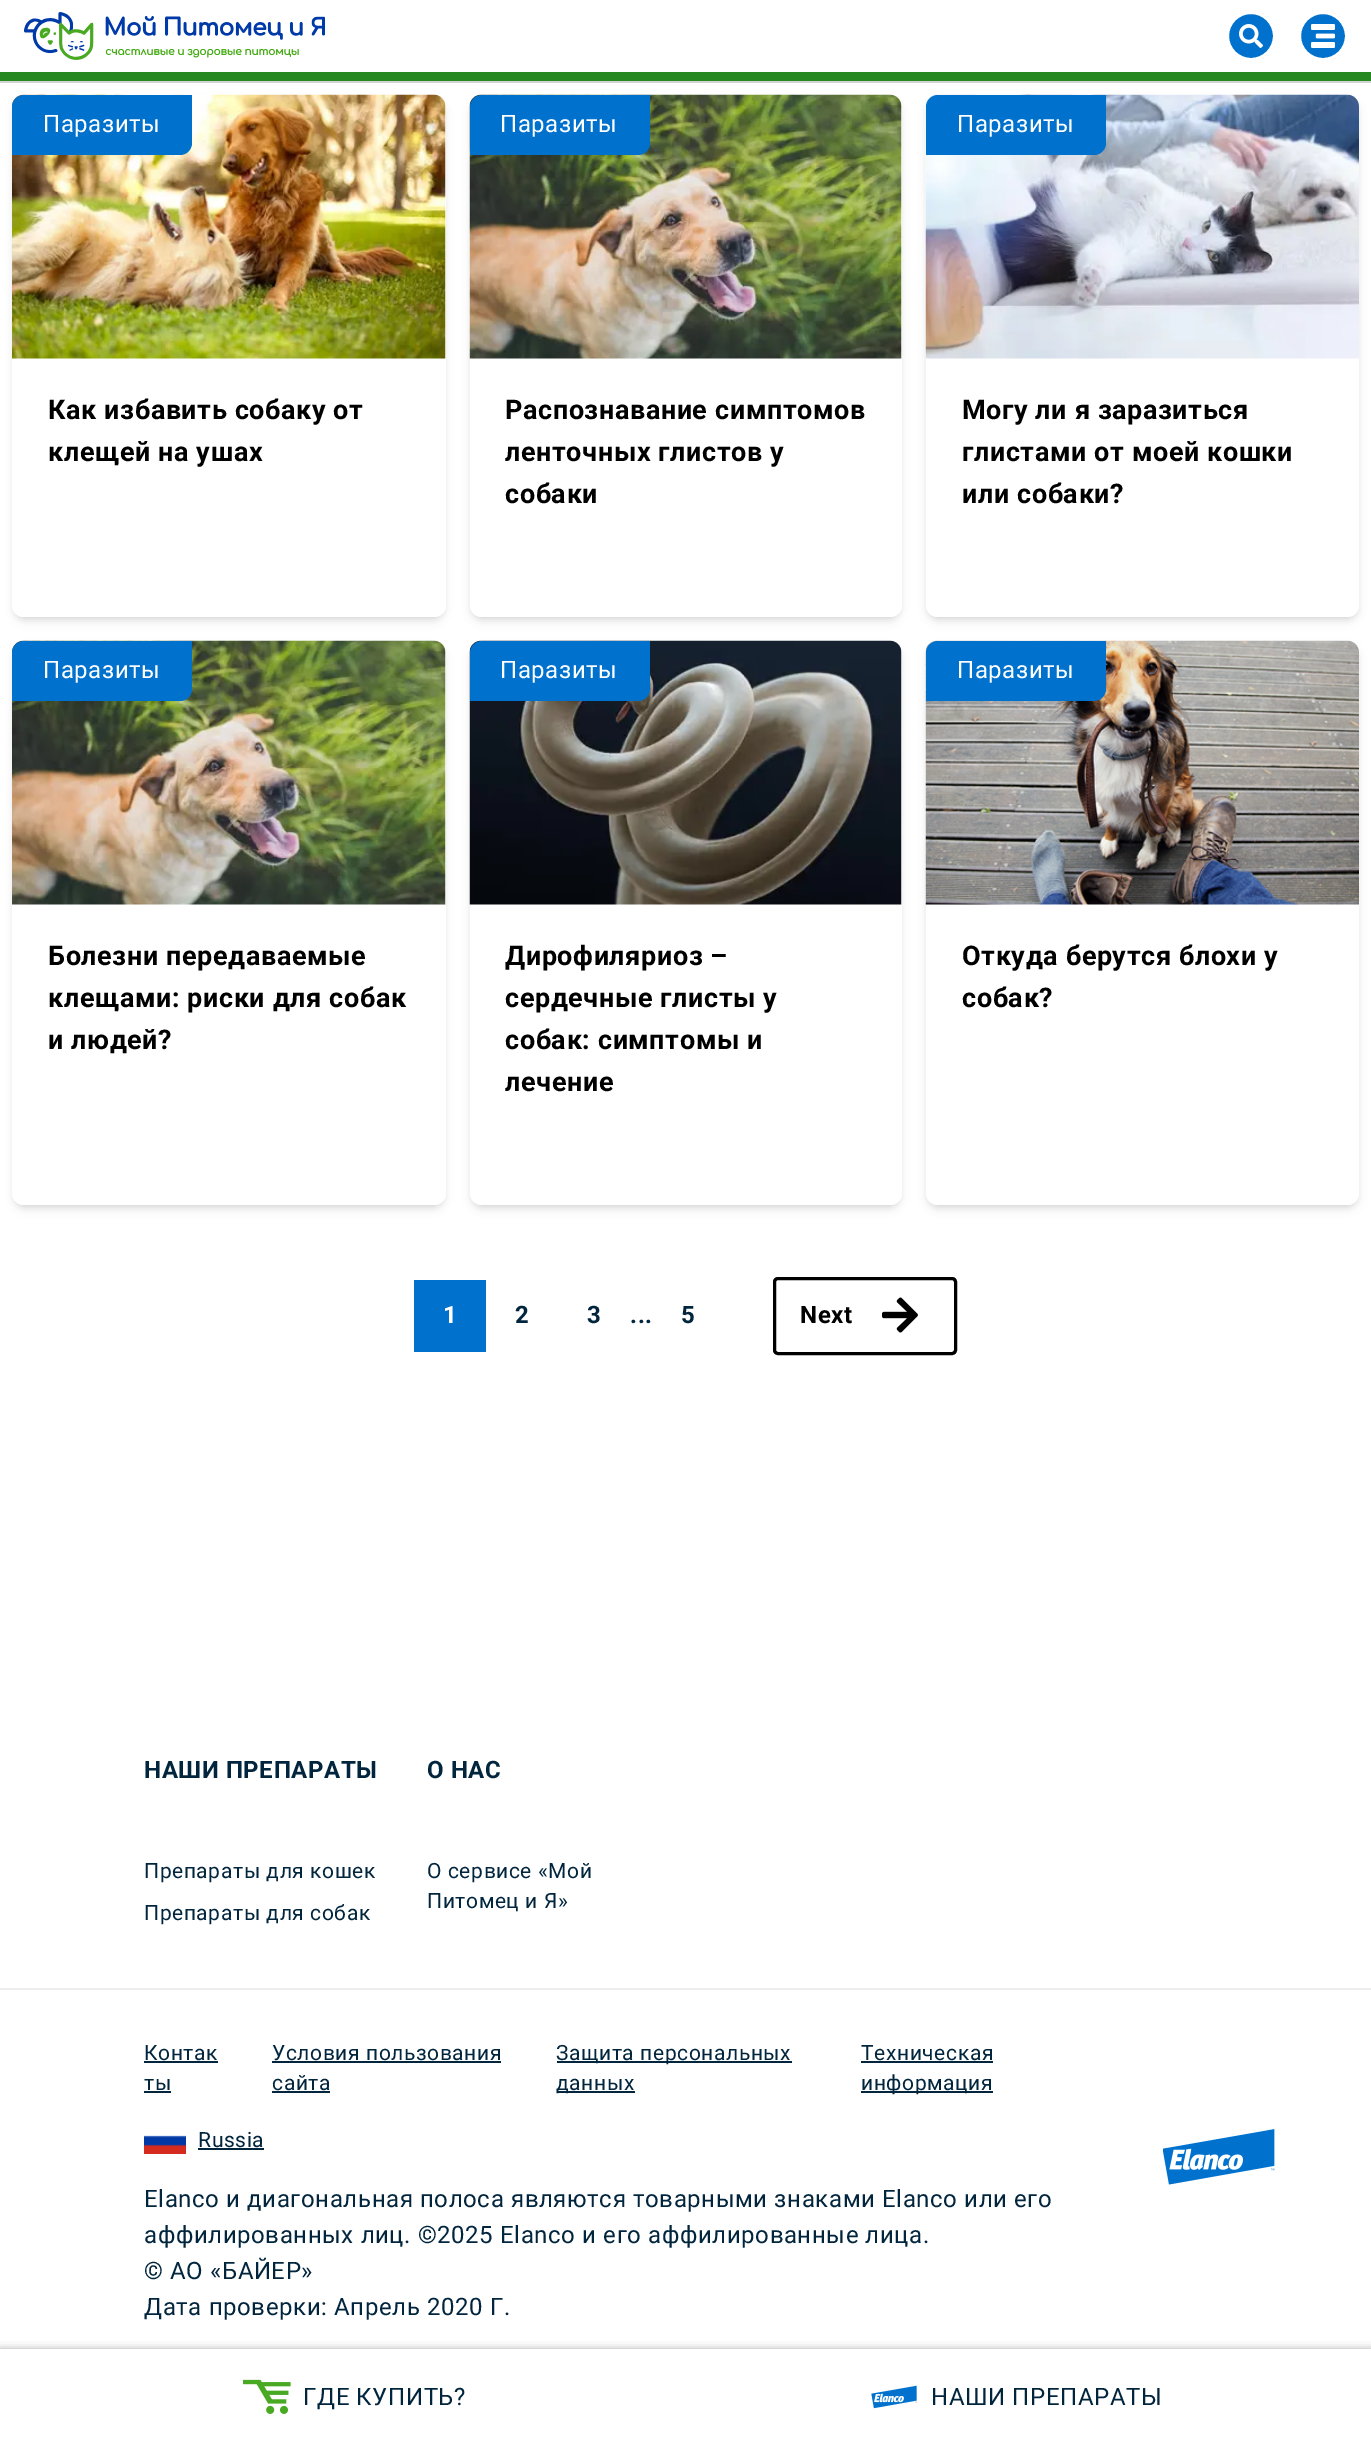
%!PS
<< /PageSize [1371 2444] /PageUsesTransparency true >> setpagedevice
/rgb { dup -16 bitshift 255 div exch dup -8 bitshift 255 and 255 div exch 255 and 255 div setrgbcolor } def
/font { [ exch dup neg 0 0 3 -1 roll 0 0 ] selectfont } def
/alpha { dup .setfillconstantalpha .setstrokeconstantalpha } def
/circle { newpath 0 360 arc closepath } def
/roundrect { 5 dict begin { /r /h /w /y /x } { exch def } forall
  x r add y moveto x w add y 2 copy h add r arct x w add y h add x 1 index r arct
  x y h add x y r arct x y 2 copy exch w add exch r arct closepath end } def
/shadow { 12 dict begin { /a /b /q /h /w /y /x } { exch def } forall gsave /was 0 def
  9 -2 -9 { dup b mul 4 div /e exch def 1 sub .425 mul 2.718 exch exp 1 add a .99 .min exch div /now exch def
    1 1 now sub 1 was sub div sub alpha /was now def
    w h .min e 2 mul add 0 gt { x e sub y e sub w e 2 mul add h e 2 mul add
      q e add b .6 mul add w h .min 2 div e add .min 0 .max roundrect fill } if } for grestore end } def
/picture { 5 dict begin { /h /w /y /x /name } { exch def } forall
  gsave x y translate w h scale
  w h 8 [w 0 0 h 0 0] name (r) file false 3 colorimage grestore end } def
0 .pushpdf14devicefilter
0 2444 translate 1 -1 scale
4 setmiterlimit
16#FFFFFF rgb
0 0 1371 2444 rectfill
16#D3D3D3 rgb
0 81 1371 2 rectfill
16#258821 rgb
0 72 1371 9 rectfill
(pic1.raw) 24 12 301 48 picture
16#0072CE rgb
1251 36 23 circle gsave fill grestore
16#FFFFFF rgb
2 setlinewidth
stroke
(pic2.raw) 1239 24 24 24 picture
16#0072CE rgb
1323 36 23 circle gsave fill grestore
16#FFFFFF rgb
stroke
(pic3.raw) 1311 24 24 24 picture
16#000000 rgb
15 101 428 516 9 3 0.1 shadow
14 102 430 519 11 4.5 0.1 shadow
16#FFFFFF rgb
12 95 434 522 12 roundrect fill
(pic4.raw) 12 94 434 265 picture
16#0072CE rgb
24 95 moveto 192 95 lineto 192 143 lineto 192 149.5 186.5 155 180 155 curveto 12 155 lineto 12 107 lineto 12 100.5 17.5 95 24 95 curveto closepath fill
/Roboto-Regular 24 font
16#FFFFFF rgb
43 132 moveto 0.6 0 (Паразиты) ashow
12 359 moveto 446 359 lineto 446 605 lineto 446 611.5 440.5 617 434 617 curveto 24 617 lineto 17.5 617 12 611.5 12 605 curveto closepath fill
/Roboto-Bold 27 font
16#000000 rgb
48 419 moveto 0.6 0 (Как избавить собаку от) ashow
48 461 moveto 0.6 0 (клещей на ушах) ashow
473 101 426 516 9 3 0.1 shadow
471 102 429 519 11 4.5 0.1 shadow
16#FFFFFF rgb
470 95 432 522 12 roundrect fill
(pic5.raw) 469 94 433 265 picture
16#0072CE rgb
482 95 moveto 650 95 lineto 650 143 lineto 650 149.5 644.5 155 638 155 curveto 470 155 lineto 470 107 lineto 470 100.5 475.5 95 482 95 curveto closepath fill
/Roboto-Regular 24 font
16#FFFFFF rgb
500 132 moveto 0.6 0 (Паразиты) ashow
470 359 moveto 902 359 lineto 902 605 lineto 902 611.5 896.5 617 890 617 curveto 482 617 lineto 475.5 617 470 611.5 470 605 curveto closepath fill
/Roboto-Bold 27 font
16#000000 rgb
505 419 moveto 0.6 0 (Распознавание симптомов) ashow
505 461 moveto 0.6 0 (ленточных глистов у) ashow
505 503 moveto 0.6 0 (собаки) ashow
929 101 427 516 9 3 0.1 shadow
927 102 431 519 11 4.5 0.1 shadow
16#FFFFFF rgb
926 95 433 522 12 roundrect fill
(pic6.raw) 925 94 434 265 picture
16#0072CE rgb
938 95 moveto 1106 95 lineto 1106 143 lineto 1106 149.5 1100.5 155 1094 155 curveto 926 155 lineto 926 107 lineto 926 100.5 931.5 95 938 95 curveto closepath fill
/Roboto-Regular 24 font
16#FFFFFF rgb
957 132 moveto 0.6 0 (Паразиты) ashow
926 359 moveto 1359 359 lineto 1359 605 lineto 1359 611.5 1353.5 617 1347 617 curveto 938 617 lineto 931.5 617 926 611.5 926 605 curveto closepath fill
/Roboto-Bold 27 font
16#000000 rgb
962 419 moveto 0.6 0 (Могу ли я заразиться) ashow
962 461 moveto 0.6 0 (глистами от моей кошки) ashow
962 503 moveto 0.6 0 (или собаки?) ashow
15 647 428 558 9 3 0.1 shadow
14 648 430 561 11 4.5 0.1 shadow
16#FFFFFF rgb
12 641 434 564 12 roundrect fill
(pic7.raw) 12 640 434 265 picture
16#0072CE rgb
24 641 moveto 192 641 lineto 192 689 lineto 192 695.5 186.5 701 180 701 curveto 12 701 lineto 12 653 lineto 12 646.5 17.5 641 24 641 curveto closepath fill
/Roboto-Regular 24 font
16#FFFFFF rgb
43 678 moveto 0.6 0 (Паразиты) ashow
12 905 moveto 446 905 lineto 446 1193 lineto 446 1199.5 440.5 1205 434 1205 curveto 24 1205 lineto 17.5 1205 12 1199.5 12 1193 curveto closepath fill
/Roboto-Bold 27 font
16#000000 rgb
48 965 moveto 0.6 0 (Болезни передаваемые) ashow
48 1007 moveto 0.6 0 (клещами: риски для собак) ashow
48 1049 moveto 0.6 0 (и людей?) ashow
473 647 426 558 9 3 0.1 shadow
471 648 429 561 11 4.5 0.1 shadow
16#FFFFFF rgb
470 641 432 564 12 roundrect fill
(pic8.raw) 469 640 433 265 picture
16#0072CE rgb
482 641 moveto 650 641 lineto 650 689 lineto 650 695.5 644.5 701 638 701 curveto 470 701 lineto 470 653 lineto 470 646.5 475.5 641 482 641 curveto closepath fill
/Roboto-Regular 24 font
16#FFFFFF rgb
500 678 moveto 0.6 0 (Паразиты) ashow
470 905 moveto 902 905 lineto 902 1193 lineto 902 1199.5 896.5 1205 890 1205 curveto 482 1205 lineto 475.5 1205 470 1199.5 470 1193 curveto closepath fill
/Roboto-Bold 27 font
16#000000 rgb
505 965 moveto 0.6 0 (Дирофиляриоз –) ashow
505 1007 moveto 0.6 0 (сердечные глисты у) ashow
505 1049 moveto 0.6 0 (собак: симптомы и) ashow
505 1091 moveto 0.6 0 (лечение) ashow
929 647 427 558 9 3 0.1 shadow
927 648 431 561 11 4.5 0.1 shadow
16#FFFFFF rgb
926 641 433 564 12 roundrect fill
(pic9.raw) 925 640 434 265 picture
16#0072CE rgb
938 641 moveto 1106 641 lineto 1106 689 lineto 1106 695.5 1100.5 701 1094 701 curveto 926 701 lineto 926 653 lineto 926 646.5 931.5 641 938 641 curveto closepath fill
/Roboto-Regular 24 font
16#FFFFFF rgb
957 678 moveto 0.6 0 (Паразиты) ashow
926 905 moveto 1359 905 lineto 1359 1193 lineto 1359 1199.5 1353.5 1205 1347 1205 curveto 938 1205 lineto 931.5 1205 926 1199.5 926 1193 curveto closepath fill
/Roboto-Bold 27 font
16#000000 rgb
962 965 moveto 0.6 0 (Откуда берутся блохи у) ashow
962 1007 moveto 0.6 0 (собак?) ashow
16#0072CE rgb
414 1280 72 72 rectfill
/Roboto-Bold 24 font
16#FFFFFF rgb
443 1323 moveto 0.6 0 (1) ashow
16#02253E rgb
515 1323 moveto 0.6 0 (2) ashow
587 1323 moveto 0.6 0 (3) ashow
630 1323 moveto 0.6 0 (...) ashow
681 1323 moveto 0.6 0 (5) ashow
16#000000 rgb
3 setlinewidth
774.5 1278.5 181 75 3.5 roundrect stroke
800 1323 moveto 0.6 0 (Next) ashow
(pic10.raw) 882 1297 36 36 picture
16#02253E rgb
144 1778 moveto 0.6 0 (НАШИ ПРЕПАРАТЫ) ashow
/Roboto-Regular 21 font
144 1878 moveto 0.6 0 (Препараты для кошек) ashow
144 1920 moveto 0.6 0 (Препараты для собак) ashow
/Roboto-Bold 24 font
427 1778 moveto 0.6 0 (О НАС) ashow
/Roboto-Regular 21 font
427 1878 moveto 0.6 0 (О сервисе «Мой) ashow
427 1908 moveto 0.6 0 (Питомец и Я») ashow
16#EDEDED rgb
0 1988 1371 2 rectfill
16#02253E rgb
144 2060 moveto 0.6 0 (Контак) ashow
144 2061 74 2 rectfill
144 2090 moveto 0.6 0 (ты) ashow
144 2091 27 2 rectfill
272 2060 moveto 0.6 0 (Условия пользования) ashow
272 2061 229 2 rectfill
272 2090 moveto 0.6 0 (сайта) ashow
272 2091 58 2 rectfill
557 2061 235 2 rectfill
556 2060 moveto 0.6 0 (Защита персональных) ashow
557 2091 78 2 rectfill
556 2090 moveto 0.6 0 (данных) ashow
861 2060 moveto 0.6 0 (Техническая) ashow
861 2061 132 2 rectfill
861 2091 132 2 rectfill
861 2090 moveto 0.6 0 (информация) ashow
(pic11.raw) 144 2135 42 19 picture
198 2147 moveto 0.6 0 (Russia) ashow
198 2148 66 2 rectfill
/Roboto-Regular 24 font
144 2207 moveto 0.6 0 (Elanco и диагональная полоса являются товарными знаками Elanco или его) ashow
144 2243 moveto 0.6 0 (аффилированных лиц. ©2025 Elanco и его аффилированные лица.) ashow
144 2279 moveto 0.6 0 (© АО «БАЙЕР») ashow
144 2315 moveto 0.6 0 (Дата проверки: Апрель 2020 Г.) ashow
(pic12.raw) 1163 2129 112 56 picture
gsave
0 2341 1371 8 rectclip
16#A9A9A9 rgb
0 2349 1371 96 0 4 1 shadow
grestore
(pic13.raw) 243 2379 48 35 picture
303 2405 moveto 0.6 0 (ГДЕ КУПИТЬ?) ashow
(pic14.raw) 871 2385 46 24 picture
931 2405 moveto 0.6 0 (НАШИ ПРЕПАРАТЫ) ashow
.poppdf14devicefilter showpage
